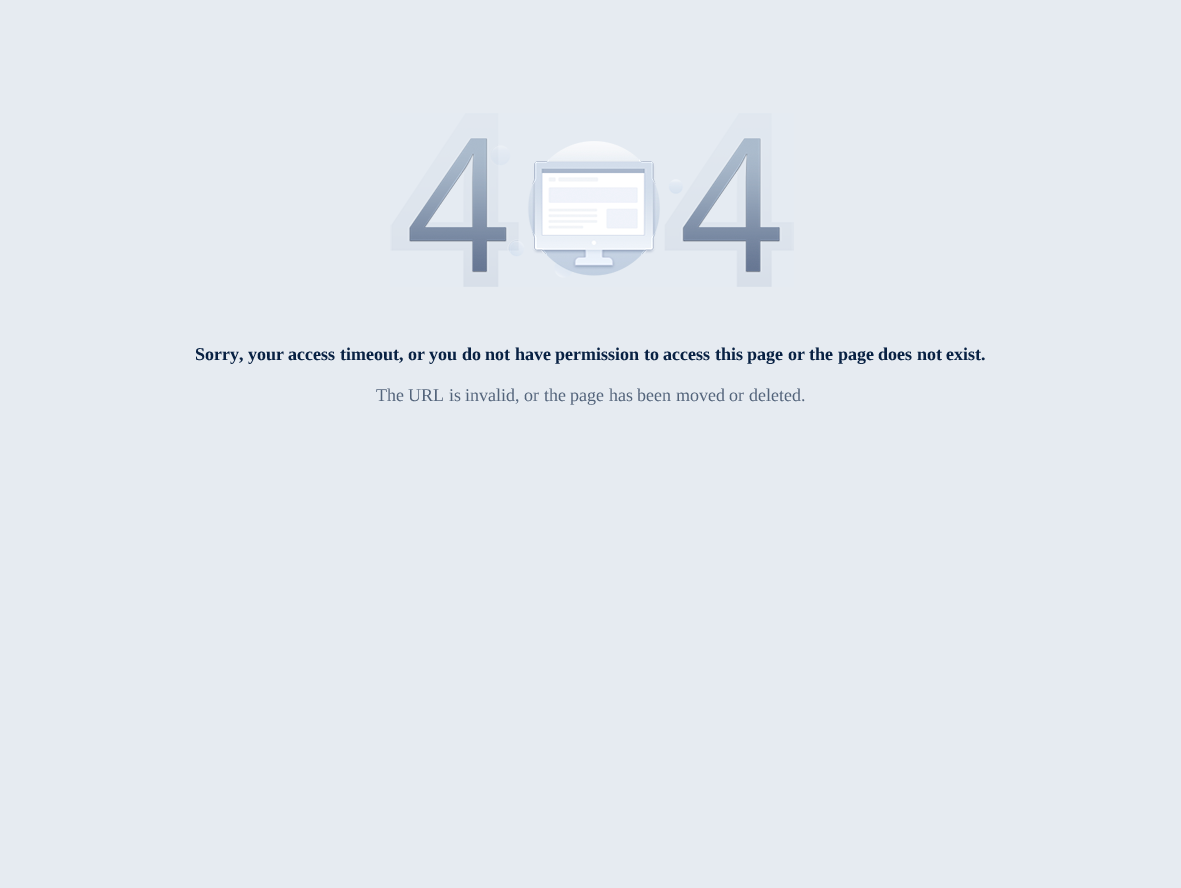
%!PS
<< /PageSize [1181 888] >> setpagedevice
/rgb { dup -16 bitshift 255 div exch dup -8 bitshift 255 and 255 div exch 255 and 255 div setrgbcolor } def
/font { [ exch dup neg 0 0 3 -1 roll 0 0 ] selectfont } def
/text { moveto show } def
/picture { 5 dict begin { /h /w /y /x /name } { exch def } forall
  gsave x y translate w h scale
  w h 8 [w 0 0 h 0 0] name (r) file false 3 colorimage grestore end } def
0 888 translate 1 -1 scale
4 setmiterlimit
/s1 { /LiberationSerif-Bold 18 font 16#082143 rgb } def
/s2 { /LiberationSerif-Regular 18 font 16#53647B rgb } def
16#E6EBF1 rgb
0 0 1181 888 rectfill
(pic1.raw) 390 113 404 174 picture
s1
(Sorry, your access timeout, or you do not have permission to access this page or the page does not exist.) 195 360 text
s2
(The URL is invalid, or the page has been moved or deleted.) 376 401 text
showpage
